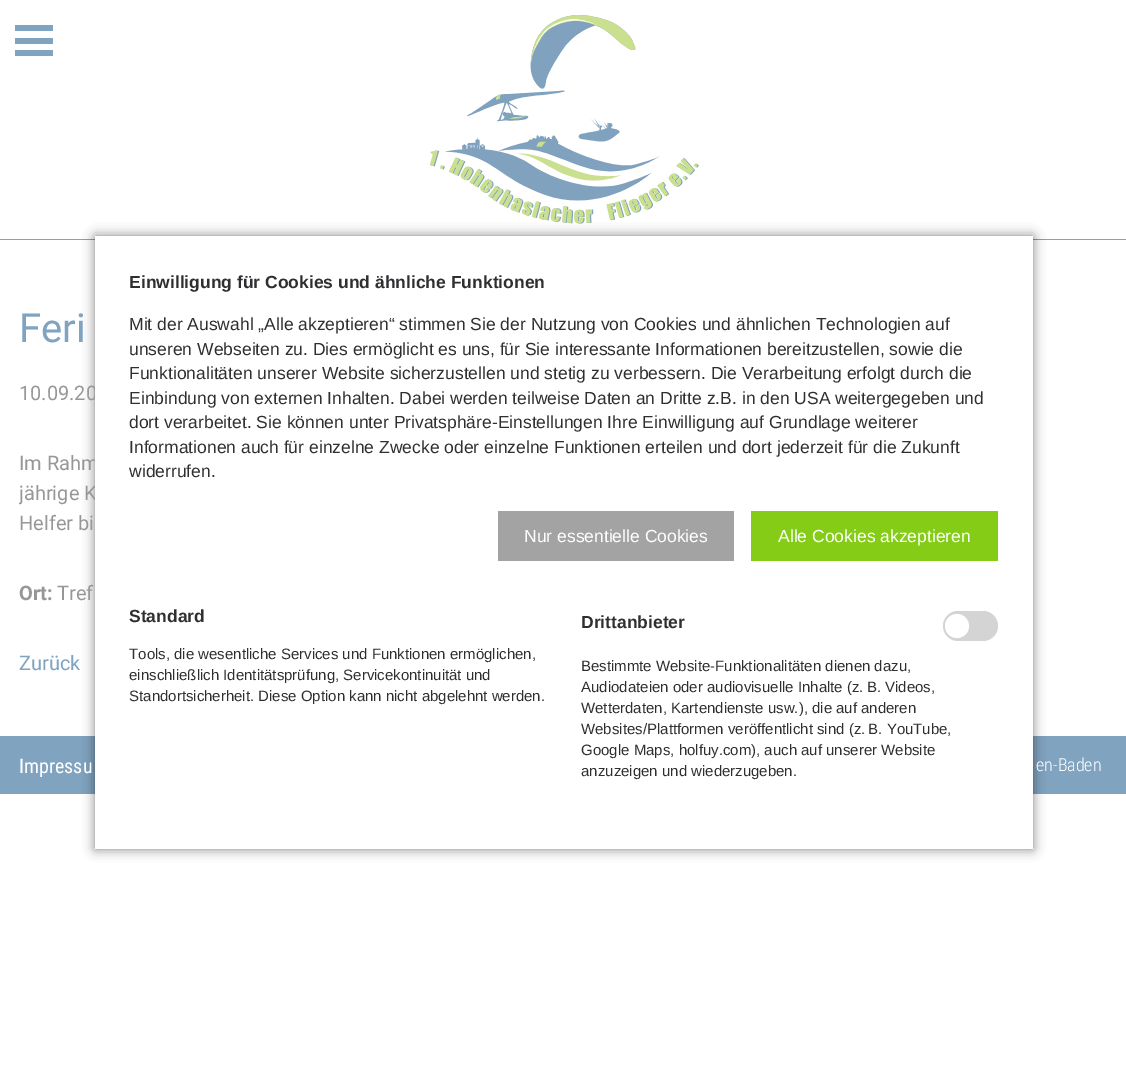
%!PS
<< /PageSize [1126 1084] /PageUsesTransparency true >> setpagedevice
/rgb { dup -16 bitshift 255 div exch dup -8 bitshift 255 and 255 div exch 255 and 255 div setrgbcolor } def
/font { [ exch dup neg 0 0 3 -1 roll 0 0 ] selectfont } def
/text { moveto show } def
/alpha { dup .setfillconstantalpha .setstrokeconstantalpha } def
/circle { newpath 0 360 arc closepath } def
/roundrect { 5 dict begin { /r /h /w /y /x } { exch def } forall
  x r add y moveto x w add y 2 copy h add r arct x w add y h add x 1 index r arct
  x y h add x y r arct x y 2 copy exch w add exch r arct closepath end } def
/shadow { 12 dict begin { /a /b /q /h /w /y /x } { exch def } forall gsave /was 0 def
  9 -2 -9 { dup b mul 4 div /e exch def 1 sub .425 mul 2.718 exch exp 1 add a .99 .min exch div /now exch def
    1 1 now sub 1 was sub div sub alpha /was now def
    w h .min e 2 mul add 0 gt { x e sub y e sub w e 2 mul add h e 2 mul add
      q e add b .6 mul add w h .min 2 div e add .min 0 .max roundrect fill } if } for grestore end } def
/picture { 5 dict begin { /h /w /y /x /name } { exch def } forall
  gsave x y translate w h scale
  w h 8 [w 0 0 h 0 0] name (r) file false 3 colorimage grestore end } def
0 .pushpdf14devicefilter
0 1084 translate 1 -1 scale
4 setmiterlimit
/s1 { /Roboto-Regular 20 font 16#979799 rgb } def
/s2 { /LiberationSans-Bold 17.5 font 16#2F2F32 rgb } def
/s3 { /LiberationSans-Regular 17.5 font 16#2F2F32 rgb } def
/s4 { /LiberationSans-Regular 17.5 font 16#FFFFFF rgb } def
/s5 { /LiberationSans-Regular 15 font 16#2F2F32 rgb } def
/s6 { /Roboto-Regular 40 font 16#80A3BF rgb } def
/s7 { /Roboto-Bold 20 font 16#979799 rgb } def
/s8 { /Roboto-Regular 20 font 16#80A3BF rgb } def
/s9 { /RobotoCondensed-Regular 20 font 16#FFFFFF rgb } def
/s10 { /RobotoCondensed-Light 18 font 16#FFFFFF rgb } def
16#FFFFFF rgb
0 0 1126 1084 rectfill
16#80A3BF rgb
0 239 1126 1 rectfill
(pic1.raw) 429 15 270 209 picture
0 736 1126 58 rectfill
16#000000 rgb
95 236 938 613 0 6 0.5 shadow
s1
(10.09.20) 19 400 text
(Im Rahm) 19 470 text
gsave
19 429 901 130 rectclip
(jährige K) 19 500 text
grestore
16#FFFFFF rgb
95 236 938 613 rectfill
s2
(Einwilligung für Cookies und ähnliche Funktionen) 129 288 text
s3
(Mit der Auswahl „Alle akzeptieren“ stimmen Sie der Nutzung von Cookies und ähnlichen Technologien auf) 129 330 text
(unseren Webseiten zu. Dies ermöglicht es uns, für Sie interessante Informationen bereitzustellen, sowie die) 129 355 text
(Funktionalitäten unserer Website sicherzustellen und stetig zu verbessern. Die Verarbeitung erfolgt durch die) 129 379 text
(Einbindung von externen Inhalten. Dabei werden teilweise Daten an Dritte z.B. in den USA weitergegeben und) 129 404 text
(dort verarbeitet. Sie können unter Privatsphäre-Einstellungen Ihre Einwilligung auf Grundlage weiterer) 129 428 text
(Informationen auch für einzelne Zwecke oder einzelne Funktionen erteilen und dort jederzeit für die Zukunft) 129 453 text
(widerrufen.) 129 477 text
16#A3A3A3 rgb
498 511 236 50 rectfill
s4
(Nur essentielle Cookies) 524 542 text
16#84CC16 rgb
751 511 247 50 rectfill
s4
(Alle Cookies akzeptieren) 778 542 text
s2
(Standard) 129 622 text
s5
(Tools, die wesentliche Services und Funktionen ermöglichen,) 129 659 text
(einschließlich Identitätsprüfung, Servicekontinuität und) 129 680 text
(Standortsicherheit. Diese Option kann nicht abgelehnt werden.) 129 701 text
s2
(Drittanbieter) 581 628 text
16#D4D4D4 rgb
943 611 55 30 15 roundrect fill
16#FFFFFF rgb
957 626 12 circle fill
s5
(Bestimmte Website-Funktionalitäten dienen dazu,) 581 671 text
(Audiodateien oder audiovisuelle Inhalte \(z. B. Videos,) 581 692 text
(Wetterdaten, Kartendienste usw.\), die auf anderen) 581 713 text
(Websites/Plattformen veröffentlicht sind \(z. B. YouTube,) 581 734 text
(Google Maps, holfuy.com\), auch auf unserer Website) 581 755 text
(anzuzeigen und wiederzugeben.) 581 776 text
16#80A3BF rgb
15 25 38 6 rectfill
15 38 38 6 rectfill
15 50 38 6 rectfill
s6
(Feri) 19 342 text
s1
(Helfer bi) 19 530 text
s7
(Ort:) 19 600 text
s1
(Tref) 57 600 text
s8
(Zurück) 19 670 text
s9
(Impressu) 19 773 text
s10
(en-Baden) 1036 771 text
.poppdf14devicefilter showpage
